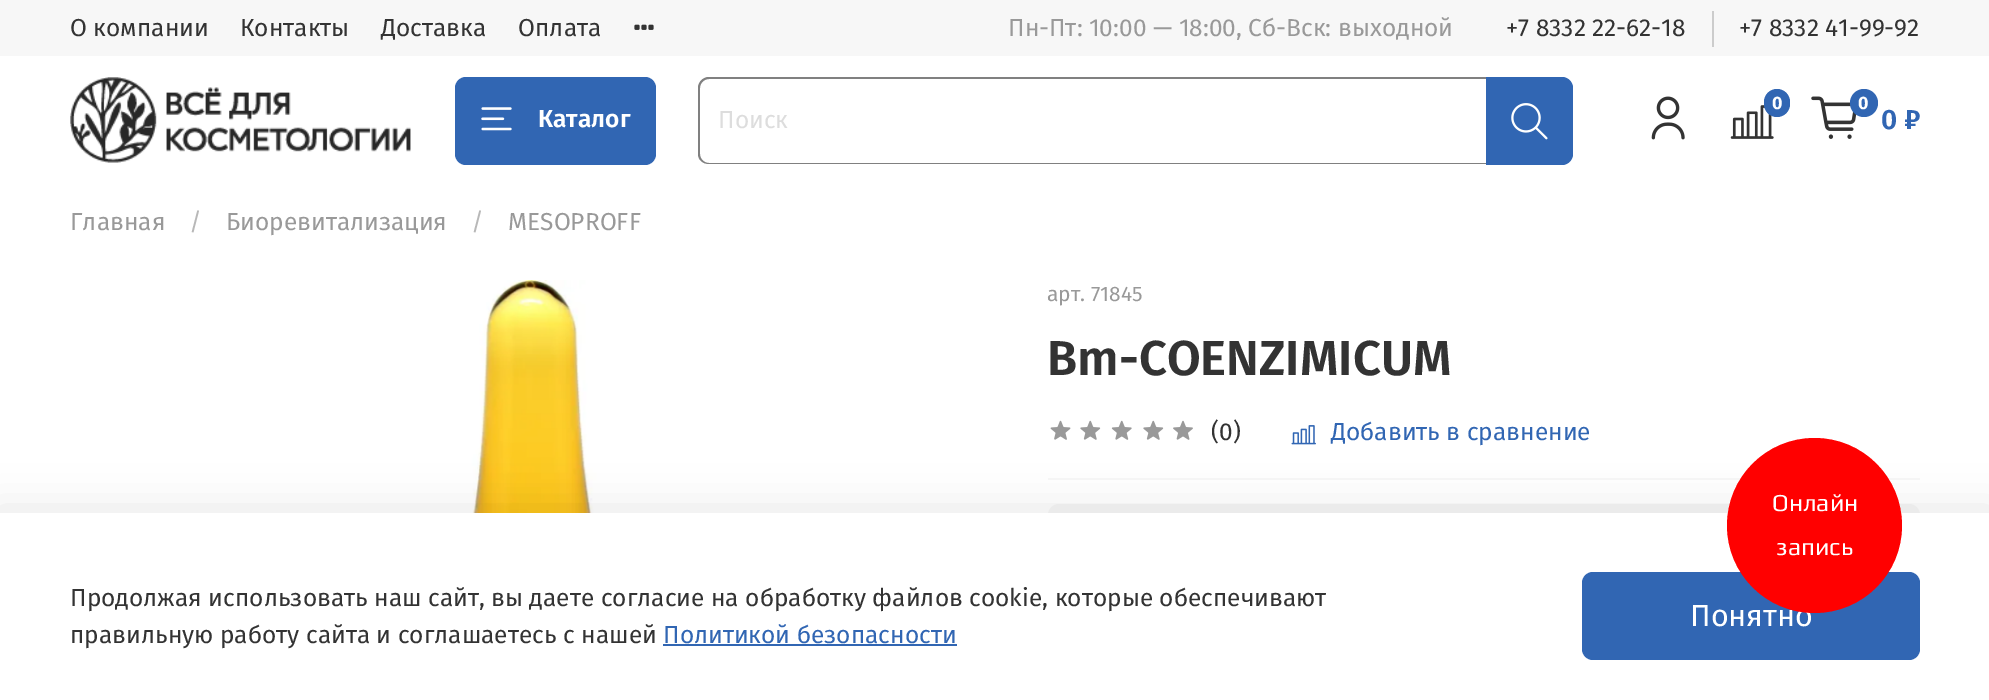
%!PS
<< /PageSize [1989 700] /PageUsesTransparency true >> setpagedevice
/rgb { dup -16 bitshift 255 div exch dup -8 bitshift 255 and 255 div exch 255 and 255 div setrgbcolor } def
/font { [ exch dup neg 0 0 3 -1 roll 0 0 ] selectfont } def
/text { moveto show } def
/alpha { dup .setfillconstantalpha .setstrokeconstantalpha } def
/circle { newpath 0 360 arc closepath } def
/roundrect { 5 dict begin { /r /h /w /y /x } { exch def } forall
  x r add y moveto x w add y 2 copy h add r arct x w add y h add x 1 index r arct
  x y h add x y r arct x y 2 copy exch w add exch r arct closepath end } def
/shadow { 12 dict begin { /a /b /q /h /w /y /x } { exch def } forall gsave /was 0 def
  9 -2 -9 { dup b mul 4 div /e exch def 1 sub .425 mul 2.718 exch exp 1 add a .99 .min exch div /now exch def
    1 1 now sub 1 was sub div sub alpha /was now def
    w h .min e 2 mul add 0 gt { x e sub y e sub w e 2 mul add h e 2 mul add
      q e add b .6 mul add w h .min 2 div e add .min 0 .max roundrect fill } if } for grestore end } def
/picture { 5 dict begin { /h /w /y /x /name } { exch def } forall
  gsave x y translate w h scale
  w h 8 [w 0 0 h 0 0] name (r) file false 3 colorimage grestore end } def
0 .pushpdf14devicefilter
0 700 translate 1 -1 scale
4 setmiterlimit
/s1 { /FiraSans-Regular 24.5 font 16#333333 rgb } def
/s2 { /FiraSans-Regular 24.5 font 16#999999 rgb } def
/s3 { /FiraSans-SemiBold 24.5 font 16#FFFFFF rgb } def
/s4 { /FiraSans-Regular 24.5 font 16#DDDDDD rgb } def
/s5 { /FiraSans-Bold 18 font 16#FFFFFF rgb } def
/s6 { /FiraSans-SemiBold 28 font 16#3166B3 rgb } def
/s7 { /FiraSans-Regular 24.5 font 16#B8B8B8 rgb } def
/s8 { /FiraSans-Regular 21 font 16#999999 rgb } def
/s9 { /FiraSans-SemiBold 49 font 16#333333 rgb } def
/s10 { /FiraSans-Regular 24.5 font 16#3166B3 rgb } def
/s11 { /FiraSans-Regular 30.5 font 16#FFFFFF rgb } def
/s12 { /Play-Regular 24.5 font 16#FFFFFF rgb } def
16#FFFFFF rgb
0 0 1989 700 rectfill
16#F7F7F7 rgb
0 0 1989 56 rectfill
s1
(О компании) 70 36 text
(Контакты) 240 36 text
(Доставка) 381 36 text
(Оплата) 518 36 text
(pic1.raw) 634 24 20 6 picture
s2
(Пн-Пт: 10:00 — 18:00, Сб-Вск: выходной) 1008 36 text
16#CCCCCC rgb
1712 11 2 36 rectfill
s1
(+7 8332 22-62-18) 1506 36 text
(+7 8332 41-99-92) 1739 36 text
(pic2.raw) 70 77 341 86 picture
16#3166B3 rgb
455 77 201 88 11 roundrect fill
(pic3.raw) 481 107 31 24 picture
s3
(Каталог) 538 127 text
16#808080 rgb
709 77 moveto 1486 77 lineto 1486 164 lineto 709 164 lineto 703 164 698 160 698 154 curveto 698 88 lineto 698 82 703 77 709 77 curveto closepath 709 79 moveto 1486 79 lineto 1486 163 lineto 709 163 lineto 704 163 700 159 700 154 curveto 700 88 lineto 700 83 704 79 709 79 curveto closepath eofill
s4
(Поиск) 718 128 text
16#3166B3 rgb
1486 77 moveto 1562 77 lineto 1568 77 1573 82 1573 88 curveto 1573 154 lineto 1573 160 1568 165 1562 165 curveto 1486 165 lineto closepath fill
(pic4.raw) 1511 103 37 37 picture
(pic5.raw) 1651 96 34 44 picture
(pic6.raw) 1730 105 44 34 picture
1764 89 26 28 13 roundrect fill
s5
(0) 1772 109 text
(pic7.raw) 1811 96 46 43 picture
16#3166B3 rgb
1864 103 14 circle fill
s5
(0) 1858 109 text
s6
(0 ₽) 1881 129 text
s2
(Главная) 70 230 text
s7
(/) 189 230 text
s2
(Биоревитализация) 226 230 text
s7
(/) 471 230 text
s2
(MESOPROFF) 508 230 text
(pic8.raw) 452 280 159 233 picture
s8
(арт. 71845) 1047 301 text
s9
(Bm-COENZIMICUM) 1047 375 text
16#F7F7F7 rgb
1048 478 872 2 rectfill
(pic9.raw) 1050 420 21 20 picture
(pic10.raw) 1080 420 21 20 picture
(pic11.raw) 1111 420 21 20 picture
(pic10.raw) 1143 420 21 20 picture
(pic12.raw) 1173 420 20 20 picture
s1
(\(0\)) 1211 440 text
(pic13.raw) 1291 425 25 20 picture
s10
(Добавить в сравнение) 1331 440 text
16#F7F7F7 rgb
1048 504 872 159 11 roundrect fill
16#000000 rgb
-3 508 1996 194 0 20 0.09 shadow
16#FFFFFF rgb
0 513 1989 187 rectfill
16#3166B3 rgb
1582 572 338 88 11 roundrect fill
s11
(Понятно) 1690 626 text
16#FF0000 rgb
1814.5 525.5 87.5 circle fill
s12
(Онлайн) 1772 511 text
(запись) 1776 555 text
s1
(Продолжая использовать наш сайт, вы даете согласие на обработку файлов cookie, которые обеспечивают) 70 606 text
(правильную работу сайта и соглашаетесь с нашей) 70 643 text
s10
(Политикой безопасности) 663 643 text
663 644 294 2 rectfill
.poppdf14devicefilter showpage
